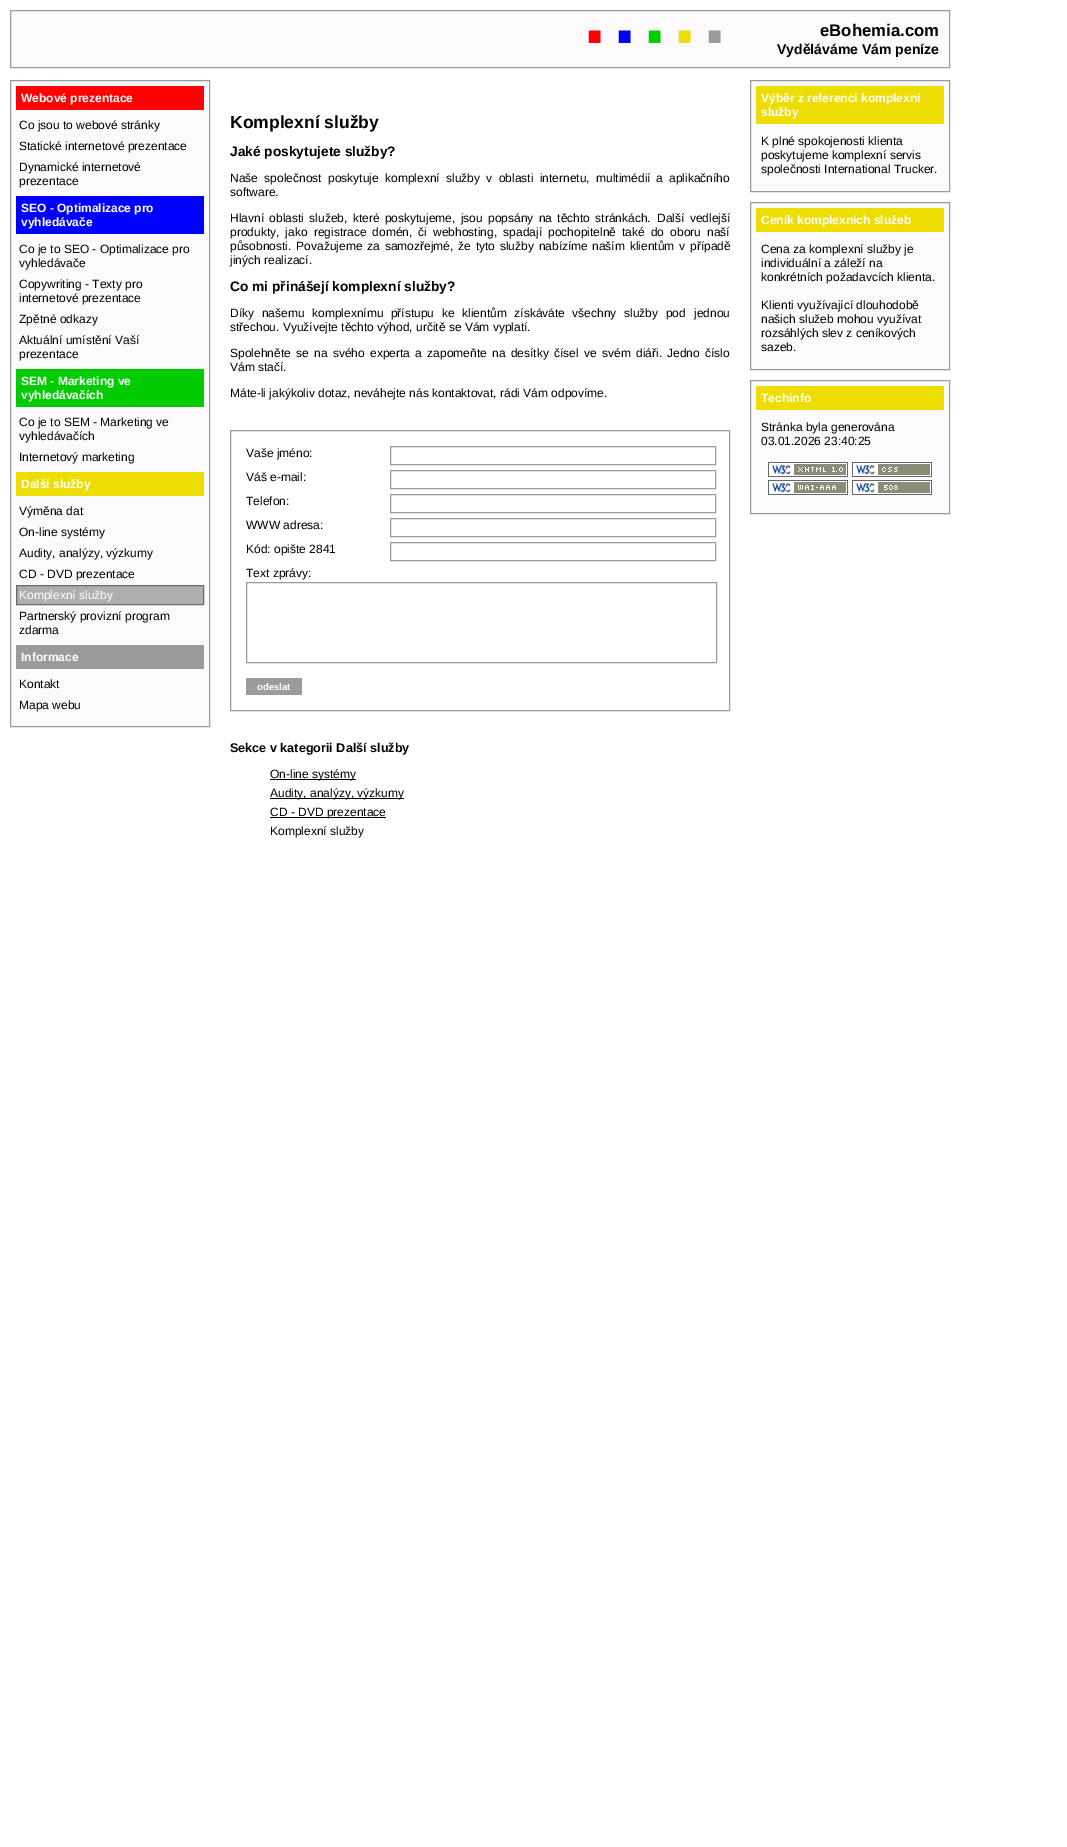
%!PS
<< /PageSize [1067 1847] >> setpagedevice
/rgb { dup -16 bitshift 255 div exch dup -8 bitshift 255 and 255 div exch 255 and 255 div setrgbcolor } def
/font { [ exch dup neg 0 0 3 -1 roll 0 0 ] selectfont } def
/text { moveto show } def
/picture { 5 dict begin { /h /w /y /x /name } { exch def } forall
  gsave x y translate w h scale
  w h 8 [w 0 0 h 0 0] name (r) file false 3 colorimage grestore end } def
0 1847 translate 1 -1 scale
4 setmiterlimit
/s1 { /LiberationSans-Bold 16.75 font 16#000000 rgb } def
/s2 { /LiberationSans-Bold 14 font 16#000000 rgb } def
/s3 { /LiberationSans-Bold 12 font 16#FFFFFF rgb } def
/s4 { /LiberationSans-Regular 12 font 16#000000 rgb } def
/s5 { /LiberationSans-Regular 12 font 16#FFFFFF rgb } def
/s6 { /LiberationSans-Bold 17.5 font 16#000000 rgb } def
/s7 { /LiberationSans-Bold 13.75 font 16#000000 rgb } def
/s8 { /LiberationSans-Bold 9.5 font 16#FFFFFF rgb } def
/s9 { /LiberationSans-Bold 12.6 font 16#000000 rgb } def
16#FFFFFF rgb
0 0 1067 1847 rectfill
16#FCFAFC rgb
10.5 10.5 moveto 949.5 10.5 lineto 949.5 67.5 lineto 10.5 67.5 lineto closepath gsave fill grestore
16#9C9A9C rgb
stroke
/LiberationSans-Bold 84 font
16#FF0000 rgb
583 43 moveto -15 0 (.) ashow
16#0000FF rgb
613 43 moveto -15 0 (.) ashow
16#00CC00 rgb
643 43 moveto -15 0 (.) ashow
16#EEDD00 rgb
673 43 moveto -15 0 (.) ashow
16#9C9A9C rgb
703 43 moveto -15 0 (.) ashow
s1
(eBohemia.com) 820 36 text
s2
(Vyděláváme Vám peníze) 777 54 text
16#FCFAFC rgb
10.5 80.5 moveto 209.5 80.5 lineto 209.5 726.5 lineto 10.5 726.5 lineto closepath gsave fill grestore
16#9C9A9C rgb
stroke
16#FF0000 rgb
16 86 188 24 rectfill
s3
(Webové prezentace) 21 102 text
s4
(Co jsou to webové stránky) 19 129 text
(Statické internetové prezentace) 19 150 text
(Dynamické internetové) 19 171 text
(prezentace) 19 185 text
16#0000FF rgb
16 196 188 38 rectfill
s3
(SEO - Optimalizace pro) 21 212 text
(vyhledávače) 21 226 text
s4
(Co je to SEO - Optimalizace pro) 19 253 text
(vyhledávače) 19 267 text
(Copywriting - Texty pro) 19 288 text
(internetové prezentace) 19 302 text
(Zpětné odkazy) 19 323 text
(Aktuální umístění Vaší) 19 344 text
(prezentace) 19 358 text
16#00CC00 rgb
16 369 188 38 rectfill
s3
(SEM - Marketing ve) 21 385 text
(vyhledávačích) 21 399 text
s4
(Co je to SEM - Marketing ve) 19 426 text
(vyhledávačích) 19 440 text
(Internetový marketing) 19 461 text
16#EEDD00 rgb
16 472 188 24 rectfill
s3
(Další služby) 21 488 text
s4
(Výměna dat) 19 515 text
(On-line systémy) 19 536 text
(Audity, analýzy, výzkumy) 19 557 text
(CD - DVD prezentace) 19 578 text
16#AEAFAE rgb
16.5 585.5 moveto 203.5 585.5 lineto 203.5 604.5 lineto 16.5 604.5 lineto closepath gsave fill grestore
16#6C6A6C rgb
stroke
s5
(Komplexní služby) 19 599 text
s4
(Partnerský provizní program) 19 620 text
(zdarma) 19 634 text
16#9C9A9C rgb
16 645 188 24 rectfill
s3
(Informace) 21 661 text
s4
(Kontakt) 19 688 text
(Mapa webu) 19 709 text
s6
(Komplexní služby) 230 128 text
s7
(Jaké poskytujete služby?) 230 156 text
/LiberationSans-Regular 12 font
230 182 moveto 3 0 32 (Naše společnost poskytuje komplexní služby v oblasti internetu, multimédií) widthshow
(a) 656 182 text
(aplikačního) 669 182 text
(software.) 230 196 text
230 222 moveto 2 0 32 (Hlavní oblasti služeb, které poskytujeme, jsou popsány na těchto stránkách.) widthshow
657 222 moveto 2 0 32 (Další vedlejší) widthshow
230 236 moveto 2.75 0 32 (produkty, jako registrace domén, či webhosting, spadají pochopitelně) widthshow
622 236 moveto 2.75 0 32 (také do oboru naší) widthshow
230 250 moveto 1.5 0 32 (působnosti. Považujeme za samozřejmé, že tyto služby nabízíme) widthshow
592 250 moveto 1.5 0 32 (naším klientům v případě) widthshow
(jiných realizací.) 230 264 text
s7
(Co mi přinášejí komplexní služby?) 230 291 text
/LiberationSans-Regular 12 font
230 317 moveto 4.25 0 32 (Díky našemu komplexnímu přístupu ke klientům získáváte všechny služby pod) widthshow
(jednou) 694 317 text
(střechou. Využívejte těchto výhod, určitě se Vám vyplatí.) 230 331 text
230 357 moveto 2 0 32 (Spolehněte se na svého experta a zapomeňte na desítky čísel) widthshow
584 357 moveto 2 0 32 (ve svém diáři.) widthshow
667 357 moveto 2 0 32 (Jedno číslo) widthshow
(Vám stačí.) 230 371 text
(Máte-li jakýkoliv dotaz, neváhejte nás kontaktovat, rádi Vám odpovíme.) 230 397 text
16#9C9A9C rgb
230.5 430.5 499 280 rectstroke
s4
(Vaše jméno:) 246 457 text
16#9C9A9C rgb
390.5 446.5 325 18 rectstroke
s4
(Váš e-mail:) 246 481 text
16#9C9A9C rgb
390.5 470.5 325 18 rectstroke
s4
(Telefon:) 246 505 text
16#9C9A9C rgb
390.5 494.5 325 18 rectstroke
s4
(WWW adresa:) 246 529 text
16#9C9A9C rgb
390.5 518.5 325 18 rectstroke
s4
(Kód: opište 2841) 246 553 text
16#9C9A9C rgb
390.5 542.5 325 18 rectstroke
s4
(Text zprávy:) 246 577 text
16#9C9A9C rgb
246.5 582.5 470 80 rectstroke
246 678 56 17 rectfill
s8
(odeslat) 257 690 text
s9
(Sekce v kategorii Další služby) 230 752 text
270 779 86 1 rectfill
s4
(On-line systémy) 270 778 text
270 798 134 1 rectfill
(Audity, analýzy, výzkumy) 270 797 text
270 817 116 1 rectfill
(CD - DVD prezentace) 270 816 text
(Komplexní služby) 270 835 text
16#FCFAFC rgb
750.5 80.5 moveto 949.5 80.5 lineto 949.5 191.5 lineto 750.5 191.5 lineto closepath gsave fill grestore
16#9C9A9C rgb
stroke
16#EEDD00 rgb
756 86 188 38 rectfill
s3
(Výběr z referencí komplexní) 761 102 text
(služby) 761 116 text
s4
(K plné spokojenosti klienta) 761 145 text
(poskytujeme komplexní servis) 761 159 text
(společnosti International Trucker.) 761 173 text
16#FCFAFC rgb
750.5 202.5 moveto 949.5 202.5 lineto 949.5 369.5 lineto 750.5 369.5 lineto closepath gsave fill grestore
16#9C9A9C rgb
stroke
16#EEDD00 rgb
756 208 188 24 rectfill
s3
(Ceník komplexních služeb) 761 224 text
s4
(Cena za komplexní služby je) 761 253 text
(individuální a záleží na) 761 267 text
(konkrétních požadavcích klienta.) 761 281 text
(Klienti využívající dlouhodobě) 761 309 text
(našich služeb mohou využívat) 761 323 text
(rozsáhlých slev z ceníkových) 761 337 text
(sazeb.) 761 351 text
16#FCFAFC rgb
750.5 380.5 moveto 949.5 380.5 lineto 949.5 513.5 lineto 750.5 513.5 lineto closepath gsave fill grestore
16#9C9A9C rgb
stroke
16#EEDD00 rgb
756 386 188 24 rectfill
s3
(Techinfo) 761 402 text
s4
(Stránka byla generována) 761 431 text
(03.01.2026 23:40:25) 761 445 text
(pic1.raw) 768 462 80 15 picture
(pic2.raw) 852 462 80 15 picture
(pic3.raw) 768 480 80 15 picture
(pic4.raw) 852 480 80 15 picture
showpage
